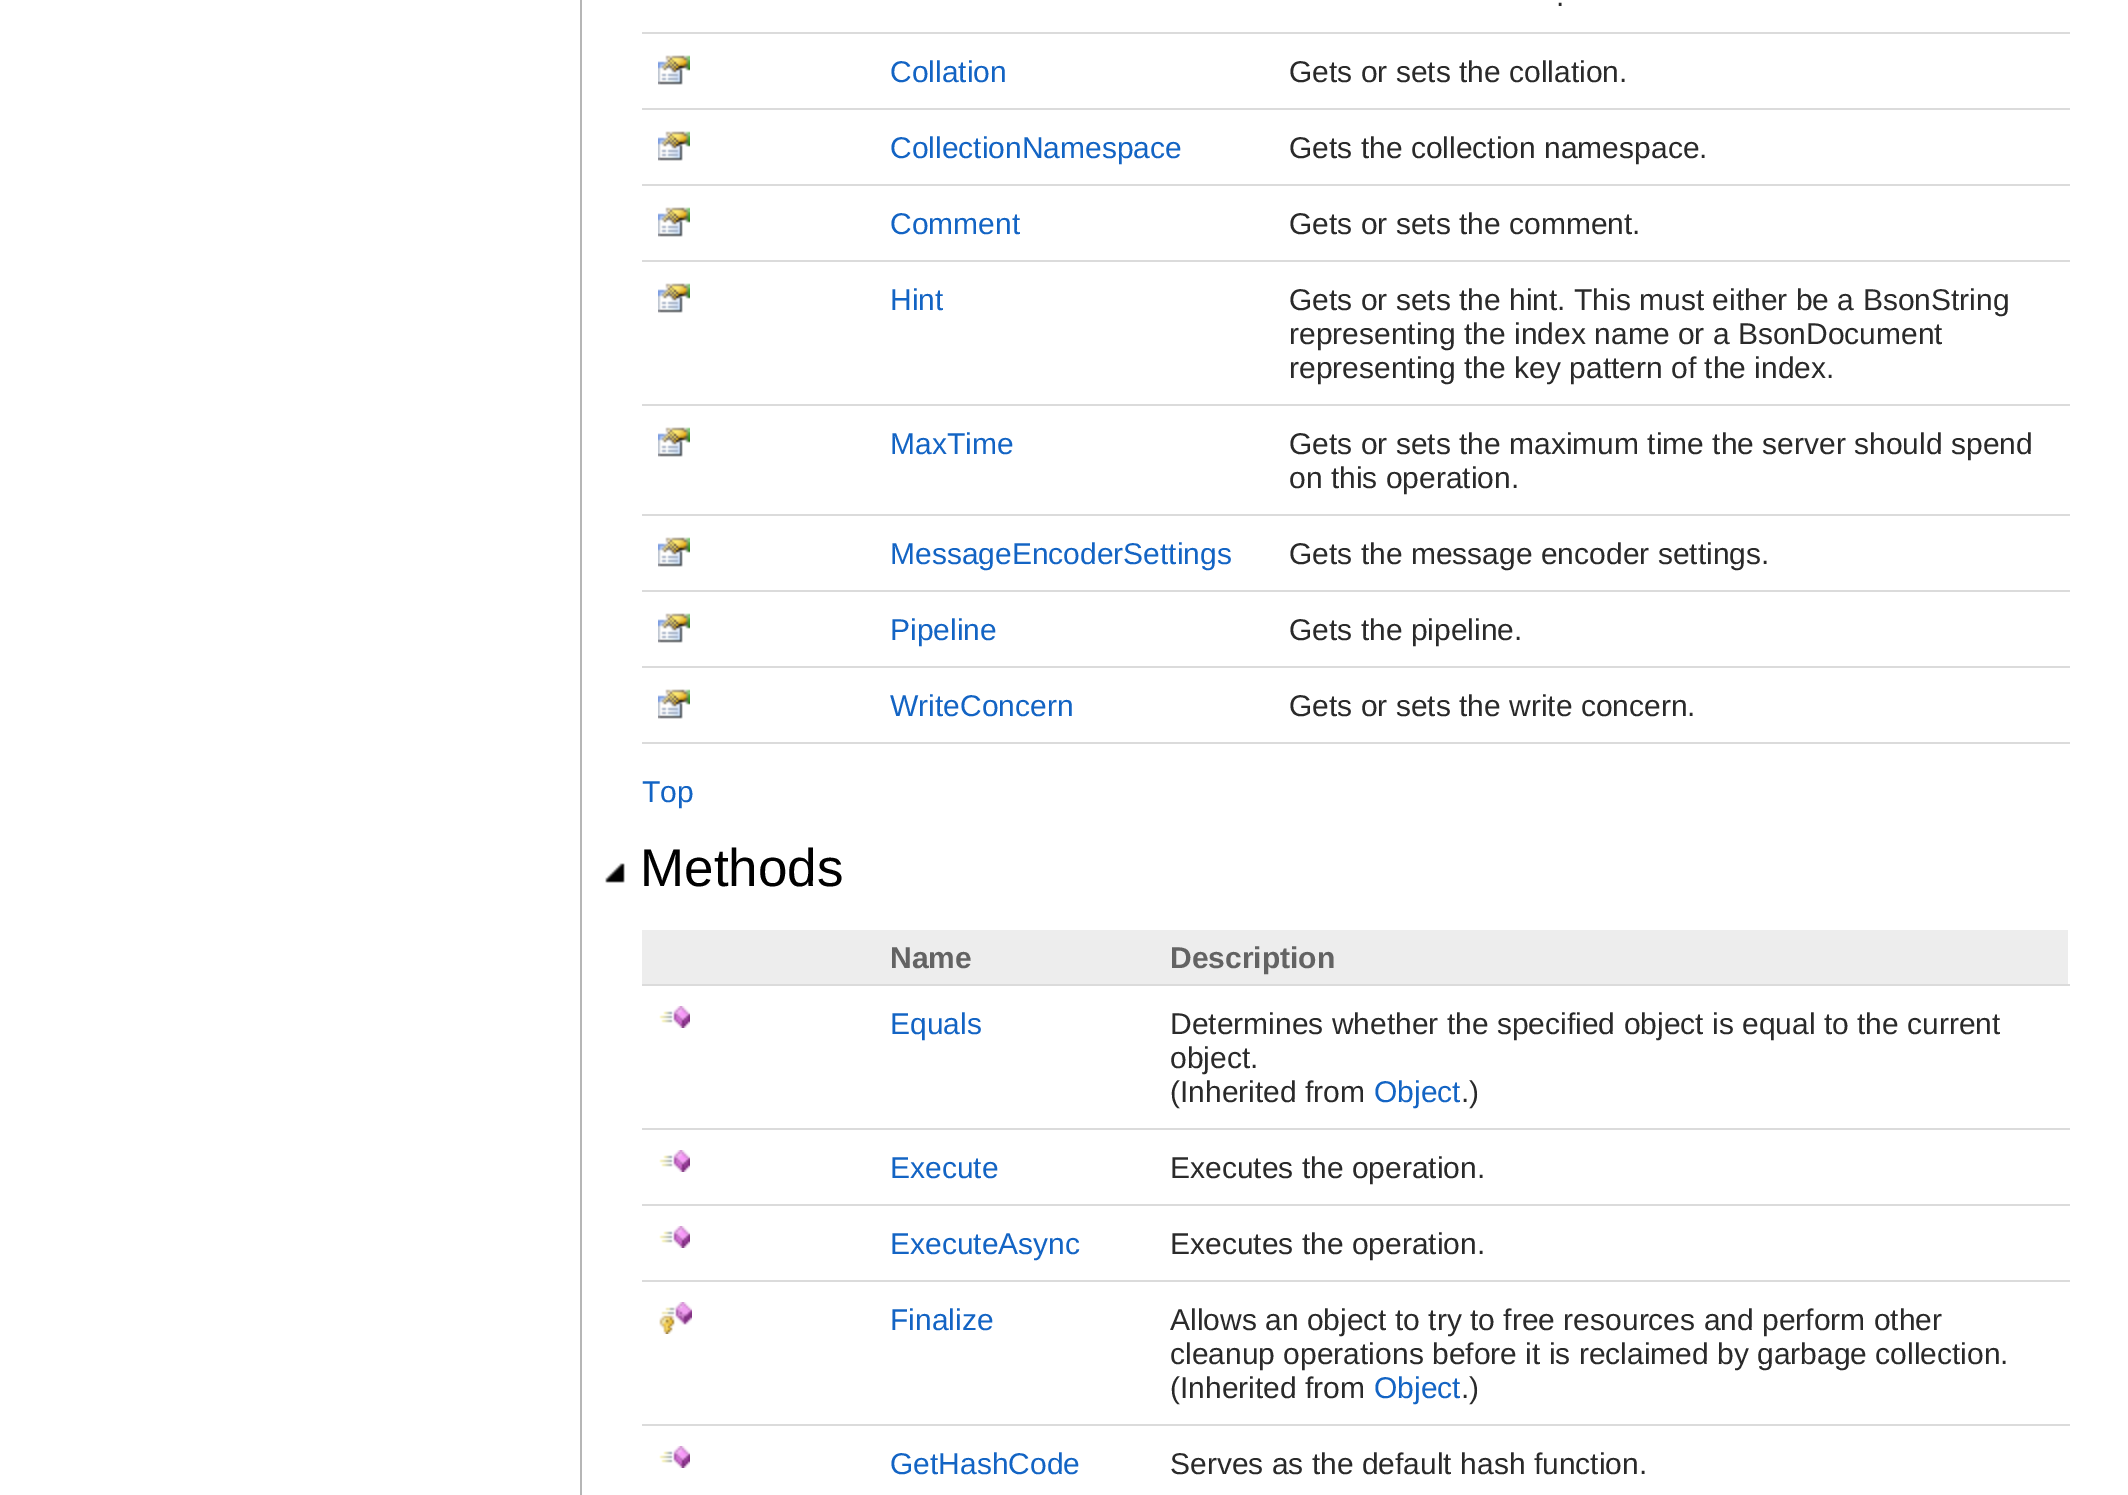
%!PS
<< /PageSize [2128 1495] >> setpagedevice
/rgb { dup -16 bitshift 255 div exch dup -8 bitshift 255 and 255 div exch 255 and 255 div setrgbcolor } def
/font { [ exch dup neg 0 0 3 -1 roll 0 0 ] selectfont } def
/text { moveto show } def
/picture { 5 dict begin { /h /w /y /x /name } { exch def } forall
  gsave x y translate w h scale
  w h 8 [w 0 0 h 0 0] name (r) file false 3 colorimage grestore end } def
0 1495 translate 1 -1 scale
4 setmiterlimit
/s1 { /LiberationSans-Regular 30 font 16#2A2A2A rgb } def
/s2 { /LiberationSans-Regular 30 font 16#1364C4 rgb } def
/s3 { /LiberationSans-Regular 53 font 16#000000 rgb } def
/s4 { /LiberationSans-Bold 30 font 16#636363 rgb } def
16#FFFFFF rgb
0 0 2128 1495 rectfill
16#B6B6B6 rgb
580 0 2 1495 rectfill
16#DBDBDB rgb
642 32 1428 2 rectfill
s1
(.) 1556 6 text
(pic1.raw) 658 55 32 30 picture
s2
(Collation) 890 82 text
16#DBDBDB rgb
642 108 1428 2 rectfill
s1
(Gets or sets the collation.) 1289 82 text
(pic1.raw) 658 131 32 30 picture
s2
(CollectionNamespace) 890 158 text
16#DBDBDB rgb
642 184 1428 2 rectfill
s1
(Gets the collection namespace.) 1289 158 text
(pic1.raw) 658 207 32 30 picture
s2
(Comment) 890 234 text
16#DBDBDB rgb
642 260 1428 2 rectfill
s1
(Gets or sets the comment.) 1289 234 text
(pic1.raw) 658 283 32 30 picture
s2
(Hint) 890 310 text
16#DBDBDB rgb
642 404 1428 2 rectfill
s1
(Gets or sets the hint. This must either be a BsonString) 1289 310 text
(representing the index name or a BsonDocument) 1289 344 text
(representing the key pattern of the index.) 1289 378 text
(pic1.raw) 658 427 32 30 picture
s2
(MaxTime) 890 454 text
16#DBDBDB rgb
642 514 1428 2 rectfill
s1
(Gets or sets the maximum time the server should spend) 1289 454 text
(on this operation.) 1289 488 text
(pic1.raw) 658 537 32 30 picture
s2
(MessageEncoderSettings) 890 564 text
16#DBDBDB rgb
642 590 1428 2 rectfill
s1
(Gets the message encoder settings.) 1289 564 text
(pic1.raw) 658 613 32 30 picture
s2
(Pipeline) 890 640 text
16#DBDBDB rgb
642 666 1428 2 rectfill
s1
(Gets the pipeline.) 1289 640 text
(pic1.raw) 658 689 32 30 picture
s2
(WriteConcern) 890 716 text
16#DBDBDB rgb
642 742 1428 2 rectfill
s1
(Gets or sets the write concern.) 1289 716 text
s2
(Top) 642 802 text
(pic2.raw) 605 863 20 20 picture
s3
(Methods) 640 886 text
16#EDEDED rgb
642 930 1426 54 rectfill
s4
(Name) 890 968 text
16#DBDBDB rgb
642 984 1428 2 rectfill
s4
(Description) 1170 968 text
(pic3.raw) 659 1006 31 22 picture
s2
(Equals) 890 1034 text
16#DBDBDB rgb
642 1128 1428 2 rectfill
s1
(Determines whether the specified object is equal to the current) 1170 1034 text
(object.) 1170 1068 text
(\(Inherited from) 1170 1102 text
s2
(Object) 1374 1102 text
s1
(.\)) 1461 1102 text
(pic3.raw) 659 1150 31 22 picture
s2
(Execute) 890 1178 text
16#DBDBDB rgb
642 1204 1428 2 rectfill
s1
(Executes the operation.) 1170 1178 text
(pic3.raw) 659 1226 31 22 picture
s2
(ExecuteAsync) 890 1254 text
16#DBDBDB rgb
642 1280 1428 2 rectfill
s1
(Executes the operation.) 1170 1254 text
(pic4.raw) 659 1302 33 32 picture
s2
(Finalize) 890 1330 text
16#DBDBDB rgb
642 1424 1428 2 rectfill
s1
(Allows an object to try to free resources and perform other) 1170 1330 text
(cleanup operations before it is reclaimed by garbage collection.) 1170 1364 text
(\(Inherited from) 1170 1398 text
s2
(Object) 1374 1398 text
s1
(.\)) 1461 1398 text
(pic3.raw) 659 1446 31 22 picture
s2
(GetHashCode) 890 1474 text
s1
(Serves as the default hash function.) 1170 1474 text
showpage
